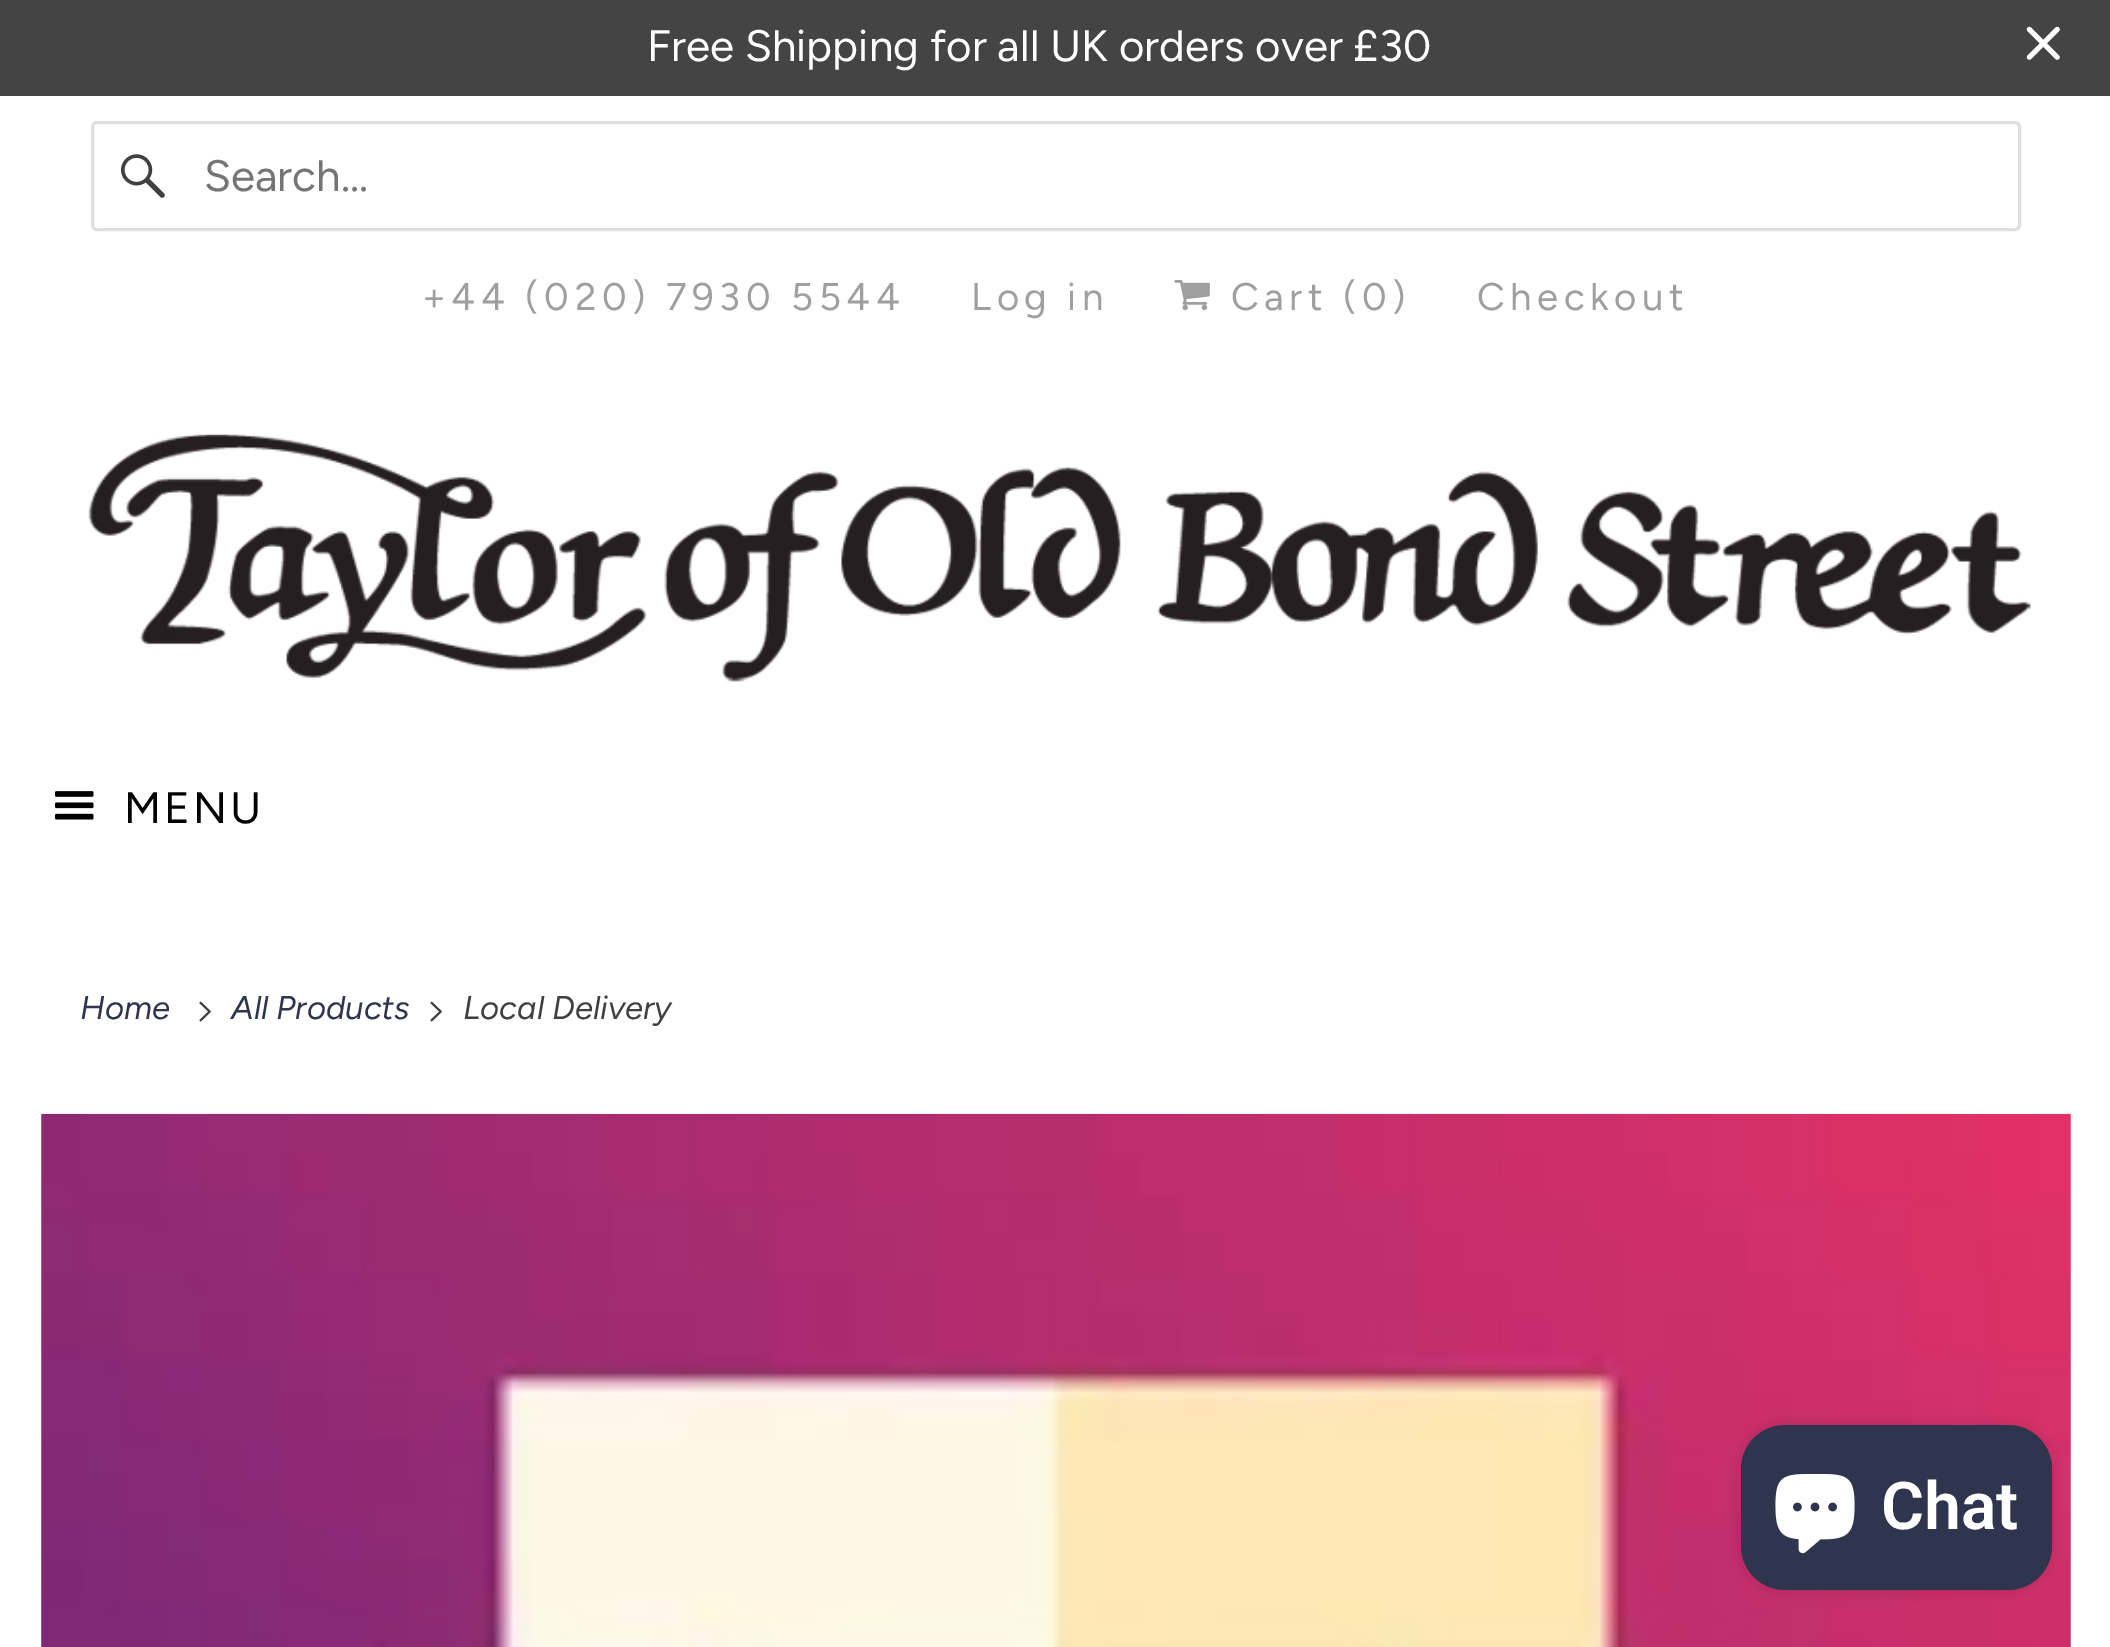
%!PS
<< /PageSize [2110 1647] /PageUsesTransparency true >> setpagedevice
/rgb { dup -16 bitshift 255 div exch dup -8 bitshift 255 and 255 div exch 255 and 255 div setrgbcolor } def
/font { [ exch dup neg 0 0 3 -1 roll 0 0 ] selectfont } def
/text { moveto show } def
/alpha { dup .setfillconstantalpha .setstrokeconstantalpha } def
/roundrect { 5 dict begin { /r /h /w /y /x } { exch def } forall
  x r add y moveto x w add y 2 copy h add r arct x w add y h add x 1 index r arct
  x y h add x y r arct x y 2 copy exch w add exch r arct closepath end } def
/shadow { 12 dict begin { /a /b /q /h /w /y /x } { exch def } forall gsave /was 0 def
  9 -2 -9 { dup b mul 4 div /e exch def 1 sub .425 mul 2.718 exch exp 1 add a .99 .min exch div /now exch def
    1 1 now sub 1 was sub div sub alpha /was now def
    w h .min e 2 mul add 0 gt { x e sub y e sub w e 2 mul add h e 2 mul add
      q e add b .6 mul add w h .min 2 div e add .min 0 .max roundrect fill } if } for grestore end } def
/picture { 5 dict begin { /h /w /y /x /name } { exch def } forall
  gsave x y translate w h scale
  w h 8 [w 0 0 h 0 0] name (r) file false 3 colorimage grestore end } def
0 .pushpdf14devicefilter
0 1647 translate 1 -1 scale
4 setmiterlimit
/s1 { /Figtree-Regular 44 font 16#FFFFFF rgb } def
/s2 { /Figtree-Regular 44 font 16#757575 rgb } def
/s3 { /Figtree-Italic 33 font 16#2F354F rgb } def
/s4 { /Figtree-Italic 33 font 16#404040 rgb } def
/s5 { /Roboto-SemiBold 66 font 16#FFFFFF rgb } def
16#FFFFFF rgb
0 0 2110 1647 rectfill
16#444444 rgb
0 0 2110 96 rectfill
s1
(Free Shipping for all UK orders over £30) 647 61 text
(pic1.raw) 2026 26 34 34 picture
16#DFDFDF rgb
3 setlinewidth
92.5 122.5 1927 107 4.5 roundrect stroke
(pic2.raw) 121 154 44 44 picture
s2
(Search...) 204 191 text
/Figtree-Regular 38.5 font
16#9F9F9F rgb
422 310 moveto 5.5 0 (+44 \(020\) 7930 5544) ashow
971 310 moveto 5.5 0 (Log in) ashow
(pic3.raw) 1174 280 36 31 picture
1231 310 moveto 5.5 0 (Cart \(0\)) ashow
1477 310 moveto 5.5 0 (Checkout) ashow
(pic4.raw) 88 434 1943 248 picture
(pic5.raw) 55 791 39 29 picture
/Figtree-Regular 44 font
16#000000 rgb
124 823 moveto 3 0 (MENU) ashow
s3
(Home) 80 1019 text
(pic6.raw) 199 1001 12 21 picture
(All Products) 231 1019 text
(pic6.raw) 430 1001 12 21 picture
s4
(Local Delivery) 463 1019 text
(pic7.raw) 41 1113 2030 534 picture
16#000000 rgb
1741 1425 311 165 44 7 0.15 shadow
16#2F354F rgb
1741 1425 311 165 44 roundrect fill
(pic8.raw) 1775 1474 80 80 picture
s5
(Chat) 1881 1529 text
.poppdf14devicefilter showpage
